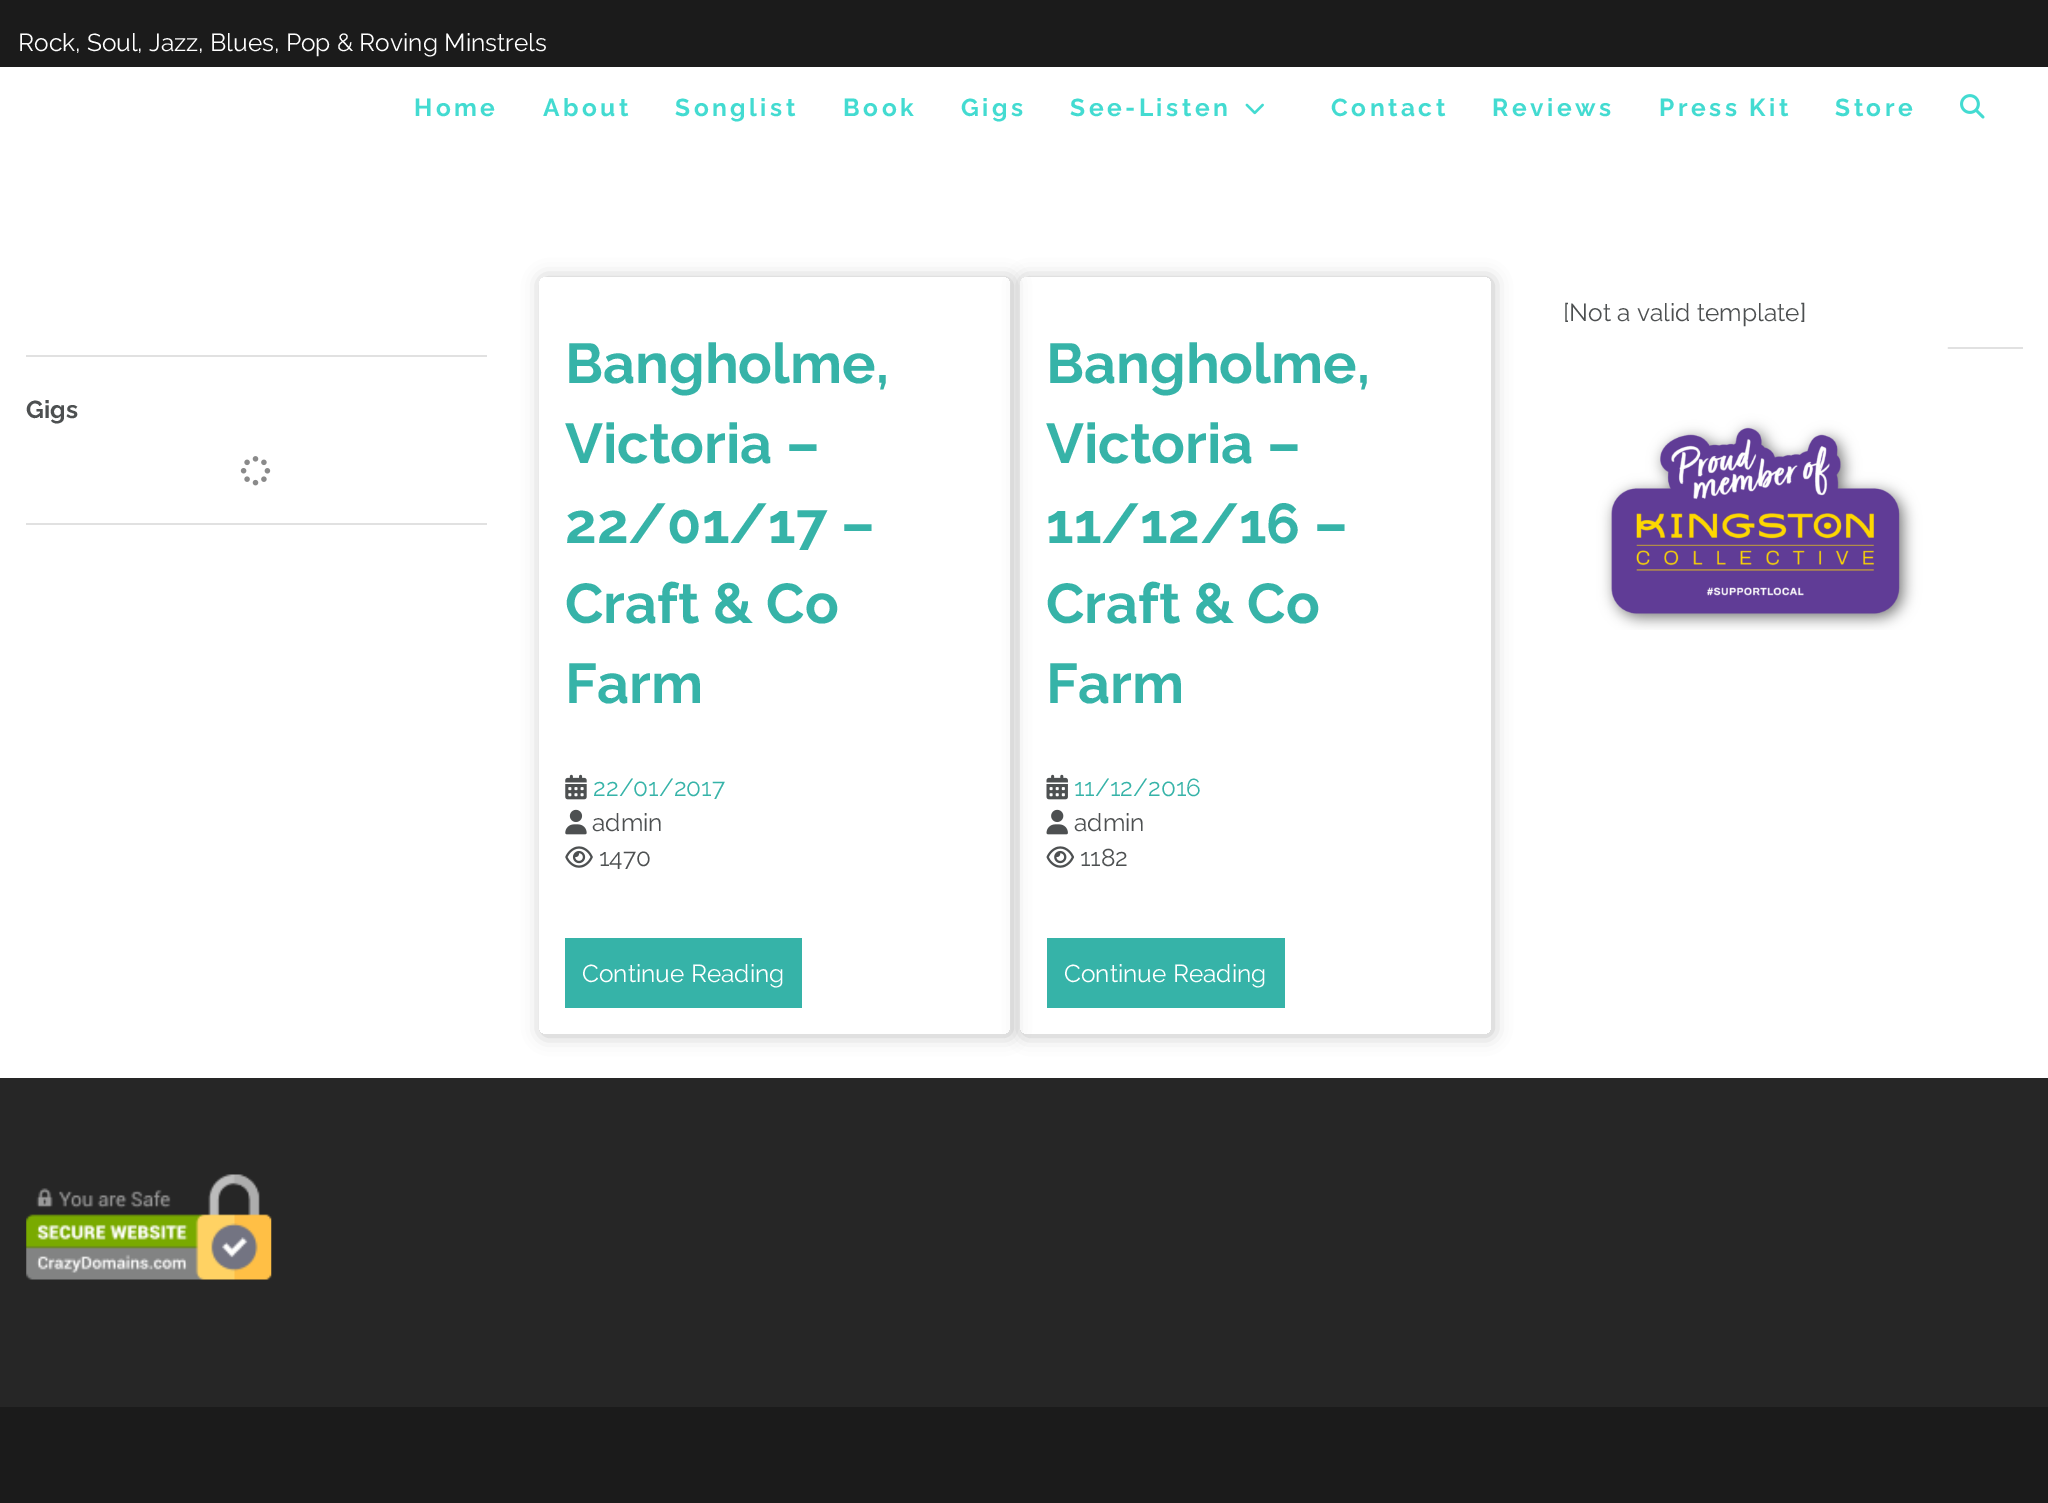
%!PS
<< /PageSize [2048 1503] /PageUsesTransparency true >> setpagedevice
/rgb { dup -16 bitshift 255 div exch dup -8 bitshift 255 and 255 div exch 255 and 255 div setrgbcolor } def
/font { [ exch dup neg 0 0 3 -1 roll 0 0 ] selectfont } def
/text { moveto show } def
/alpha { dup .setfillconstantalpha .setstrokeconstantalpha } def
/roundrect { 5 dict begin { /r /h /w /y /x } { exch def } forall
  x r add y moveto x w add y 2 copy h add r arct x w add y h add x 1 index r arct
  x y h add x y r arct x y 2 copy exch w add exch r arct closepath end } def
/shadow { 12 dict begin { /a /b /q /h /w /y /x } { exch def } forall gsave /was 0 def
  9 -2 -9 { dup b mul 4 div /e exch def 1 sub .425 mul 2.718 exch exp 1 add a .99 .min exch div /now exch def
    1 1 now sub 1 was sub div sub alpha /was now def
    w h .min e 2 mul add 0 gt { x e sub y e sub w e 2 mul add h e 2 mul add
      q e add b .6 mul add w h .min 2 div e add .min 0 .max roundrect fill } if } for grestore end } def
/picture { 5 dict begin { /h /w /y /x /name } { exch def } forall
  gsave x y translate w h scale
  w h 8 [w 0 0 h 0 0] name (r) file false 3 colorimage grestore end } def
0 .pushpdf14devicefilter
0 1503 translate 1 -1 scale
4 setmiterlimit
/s1 { /Raleway-Regular 24.5 font 16#FFFFFF rgb } def
/s2 { /Raleway-Regular 24.5 font 16#4D5051 rgb } def
/s3 { /Raleway-Bold 24.5 font 16#4D5051 rgb } def
/s4 { /Raleway-Bold 56 font 16#36B3A8 rgb } def
/s5 { /Raleway-Regular 24.5 font 16#36B3A8 rgb } def
16#FFFFFF rgb
0 0 2048 1503 rectfill
16#1B1B1B rgb
0 0 2048 67 rectfill
s1
(Rock, Soul, Jazz, Blues, Pop & Roving Minstrels) 18 51 text
/Raleway-Bold 24.5 font
16#43DBD1 rgb
414 116 moveto 3.5 0 (Home) ashow
543 116 moveto 3.5 0 (About) ashow
675 116 moveto 3.5 0 (Songlist) ashow
843 116 moveto 3.5 0 (Book) ashow
961 116 moveto 3.5 0 (Gigs) ashow
1070 116 moveto 3.5 0 (See-Listen) ashow
(pic1.raw) 1245 103 19 12 picture
1331 116 moveto 3.5 0 (Contact) ashow
1492 116 moveto 3.5 0 (Reviews) ashow
1659 116 moveto 3.5 0 (Press Kit) ashow
1835 116 moveto 3.5 0 (Store) ashow
(pic2.raw) 1960 94 25 25 picture
s2
([Not a valid template]) 1563 321 text
16#E1E1E1 rgb
1947 347 76 2 rectfill
(pic3.raw) 1563 347 385 283 picture
26 355 461 2 rectfill
26 523 461 2 rectfill
s3
(Gigs) 26 418 text
(pic4.raw) 240 456 31 30 picture
gsave
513 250 moveto 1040 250 lineto 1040 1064 lineto 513 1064 lineto closepath 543 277 moveto 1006 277 lineto 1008 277 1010 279 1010 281 curveto 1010 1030 lineto 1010 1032 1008 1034 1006 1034 curveto 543 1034 lineto 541 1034 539 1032 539 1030 curveto 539 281 lineto 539 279 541 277 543 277 curveto closepath eoclip newpath
16#BFBFBF rgb
541 278 471 758 4 9 1 shadow
grestore
s4
(Bangholme,) 565 383 text
(Victoria –) 565 463 text
(22/01/17 –) 565 543 text
(Craft & Co) 565 623 text
(Farm) 565 703 text
(pic5.raw) 565 774 22 26 picture
s5
(22/01/2017) 593 796 text
(pic6.raw) 565 809 22 26 picture
s2
(admin) 592 831 text
(pic7.raw) 565 846 28 22 picture
(1470) 599 866 text
16#36B3A8 rgb
565 938 237 70 rectfill
s1
(Continue Reading) 582 982 text
gsave
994 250 moveto 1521 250 lineto 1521 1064 lineto 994 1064 lineto closepath 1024 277 moveto 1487 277 lineto 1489 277 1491 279 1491 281 curveto 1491 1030 lineto 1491 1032 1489 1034 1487 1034 curveto 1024 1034 lineto 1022 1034 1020 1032 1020 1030 curveto 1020 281 lineto 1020 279 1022 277 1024 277 curveto closepath eoclip newpath
16#BFBFBF rgb
1022 278 471 758 4 9 1 shadow
grestore
s4
(Bangholme,) 1046 383 text
(Victoria –) 1046 463 text
(11/12/16 –) 1046 543 text
(Craft & Co) 1046 623 text
(Farm) 1046 703 text
(pic8.raw) 1046 774 22 26 picture
s5
(11/12/2016) 1074 796 text
(pic9.raw) 1046 809 22 26 picture
s2
(admin) 1074 831 text
(pic10.raw) 1046 846 29 22 picture
(1182) 1080 866 text
16#36B3A8 rgb
1047 938 238 70 rectfill
s1
(Continue Reading) 1064 982 text
16#262626 rgb
0 1078 2048 329 rectfill
(pic11.raw) 26 1174 246 106 picture
16#1B1B1B rgb
0 1407 2048 96 rectfill
.poppdf14devicefilter showpage
